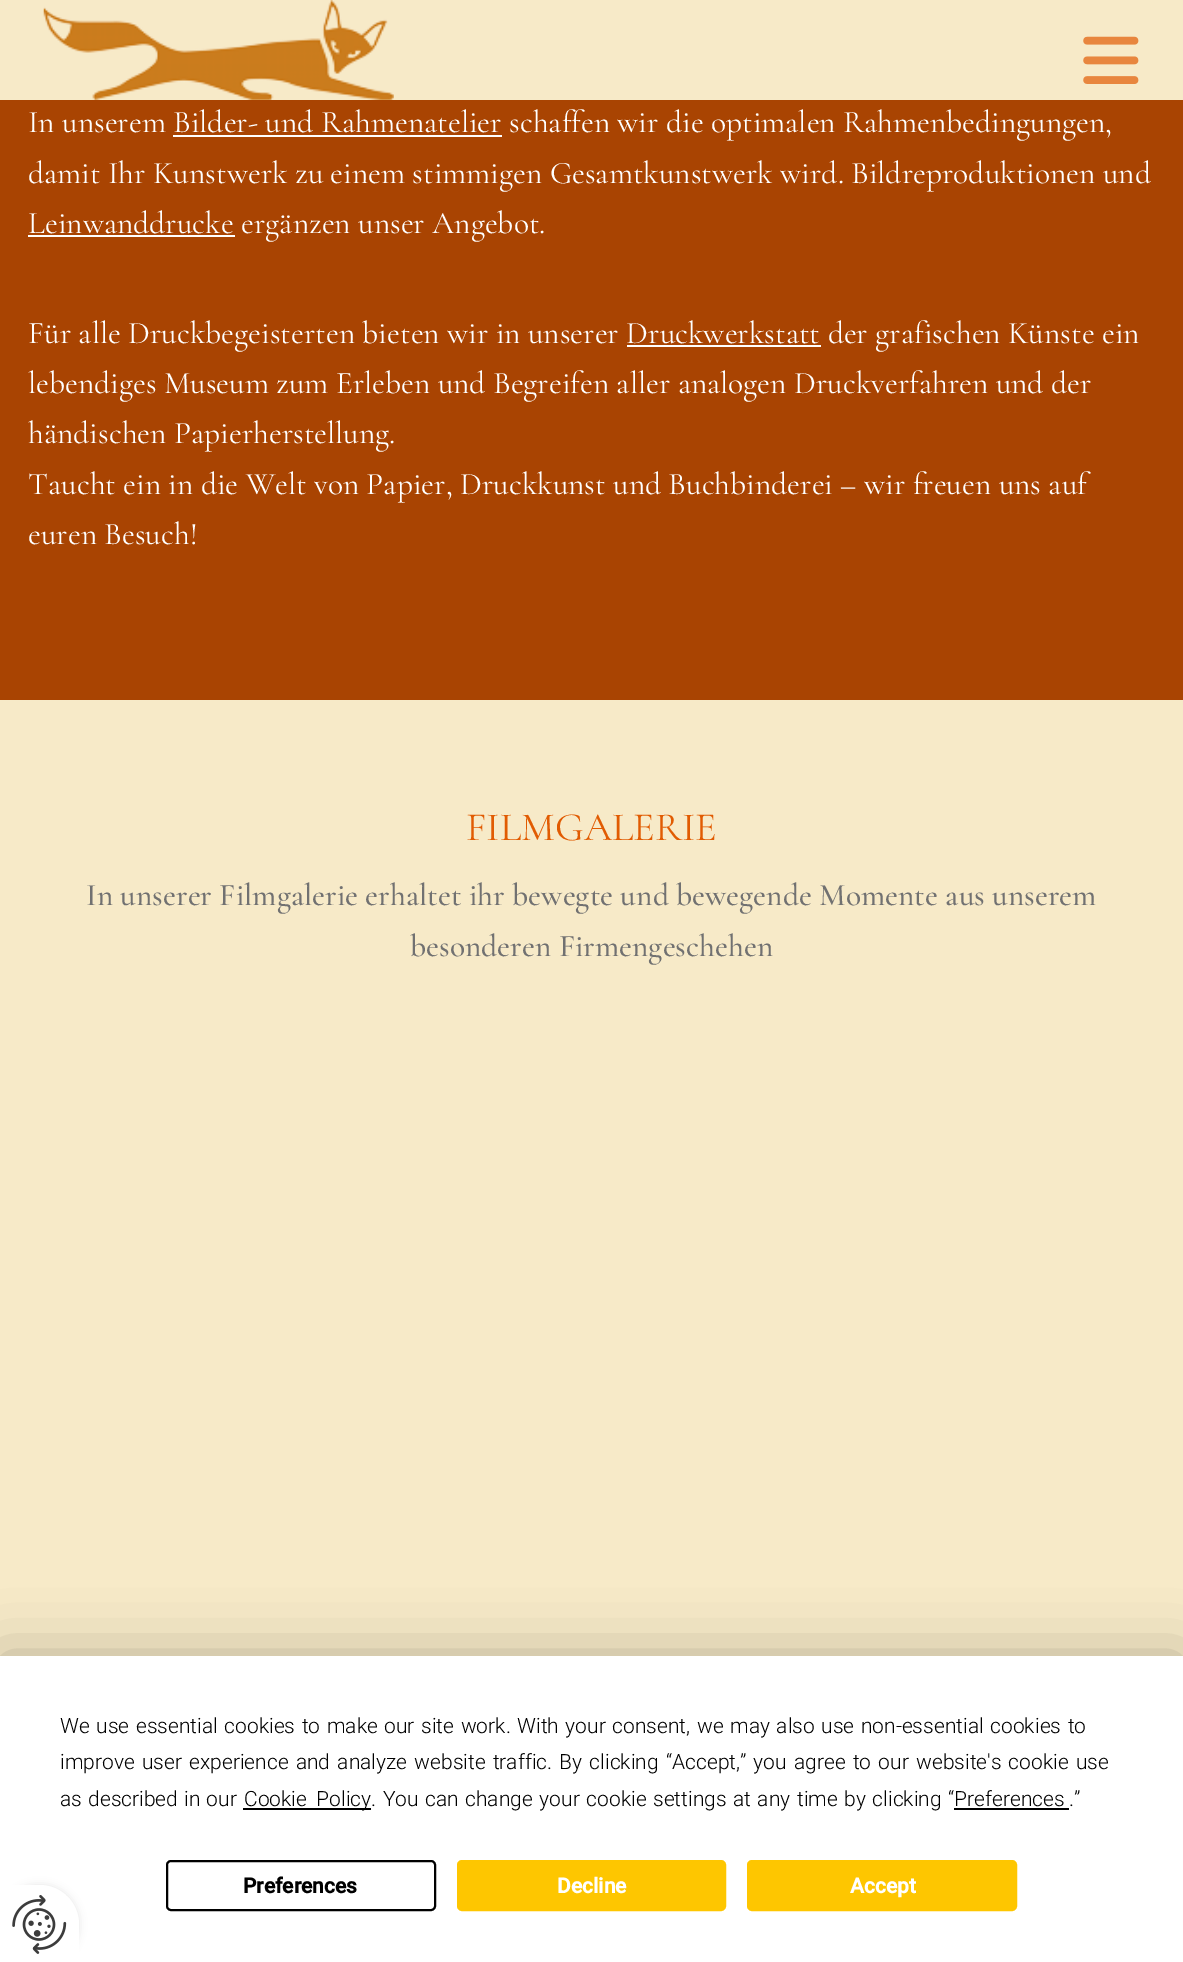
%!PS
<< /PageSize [1183 1962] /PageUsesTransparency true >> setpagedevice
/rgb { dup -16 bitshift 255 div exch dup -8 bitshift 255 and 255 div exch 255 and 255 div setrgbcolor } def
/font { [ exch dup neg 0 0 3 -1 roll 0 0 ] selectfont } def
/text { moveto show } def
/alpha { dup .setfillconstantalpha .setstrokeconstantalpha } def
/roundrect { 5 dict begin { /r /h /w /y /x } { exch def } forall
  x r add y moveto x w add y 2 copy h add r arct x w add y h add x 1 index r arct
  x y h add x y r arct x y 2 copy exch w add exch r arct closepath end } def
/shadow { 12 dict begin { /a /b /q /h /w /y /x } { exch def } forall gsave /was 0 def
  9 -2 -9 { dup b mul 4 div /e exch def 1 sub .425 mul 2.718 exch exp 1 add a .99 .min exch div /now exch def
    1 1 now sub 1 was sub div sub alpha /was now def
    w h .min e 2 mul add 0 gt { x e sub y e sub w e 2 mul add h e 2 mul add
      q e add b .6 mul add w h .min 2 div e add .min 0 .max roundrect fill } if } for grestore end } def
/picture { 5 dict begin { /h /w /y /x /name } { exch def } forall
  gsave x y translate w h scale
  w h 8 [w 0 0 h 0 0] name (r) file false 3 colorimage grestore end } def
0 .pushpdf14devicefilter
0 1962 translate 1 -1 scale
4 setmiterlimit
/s1 { /CormorantGaramond-Regular 31.5 font 16#FFFFFF rgb } def
/s2 { /CormorantGaramond-Regular 40.25 font 16#E15B02 rgb } def
/s3 { /CormorantGaramond-Medium 31.5 font 16#717171 rgb } def
/s4 { /Roboto-Light 21 font 16#000000 rgb } def
/s5 { /Roboto-Bold 21 font 16#000000 rgb } def
/s6 { /Roboto-Bold 21 font 16#FFFFFF rgb } def
16#A94402 rgb
0 0 1183 1962 rectfill
16#F7EAC8 rgb
0 0 1183 100 rectfill
(pic1.raw) 43 0 351 100 picture
(pic2.raw) 1083 36 56 48 picture
s1
(In unserem Bilder- und Rahmenatelier schaffen wir die optimalen Rahmenbedingungen,) 28 132 text
173 135 329 2 rectfill
(damit Ihr Kunstwerk zu einem stimmigen Gesamtkunstwerk wird. Bildreproduktionen und) 28 183 text
28 235 207 2 rectfill
(Leinwanddrucke ergänzen unser Angebot.) 28 233 text
(Für alle Druckbegeisterten bieten wir in unserer Druckwerkstatt der grafischen Künste ein) 28 343 text
627 345 194 2 rectfill
(lebendiges Museum zum Erleben und Begreifen aller analogen Druckverfahren und der) 28 393 text
(händischen Papierherstellung.) 28 443 text
(Taucht ein in die Welt von Papier, Druckkunst und Buchbinderei – wir freuen uns auf) 28 494 text
(euren Besuch!) 28 544 text
16#F7EAC8 rgb
0 700 1183 956 rectfill
s2
(FILMGALERIE) 466 840 text
s3
(In unserer Filmgalerie erhaltet ihr bewegte und bewegende Momente aus unserem) 86 905 text
(besonderen Firmengeschehen) 410 956 text
16#000000 rgb
0 1656 1183 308 0 30.5 0.25 shadow
16#FFFFFF rgb
0 1656 1183 306 rectfill
/Roboto-Light 21 font
16#000000 rgb
60 1733 moveto 1.4 0 32 (We use essential cookies to make our site work. With your consent, we may also use non-essential cookies to) widthshow
60 1769 moveto 2 0 32 (improve user experience and analyze website traffic. By clicking “Accept,” you agree to our website's cookie use) widthshow
60 1806 moveto 1 0 32 (as described in our) widthshow
243 1808 128 2 rectfill
244 1806 moveto 4 0 32 (Cookie Policy) widthshow
371 1806 moveto 1.4 0 32 (. You can change your cookie settings at any time by clicking “) widthshow
(Preferences) 954 1806 text
954 1808 115 2 rectfill
(.”) 1069 1806 text
2 setlinewidth
167 1861 268 49 4 roundrect stroke
s5
(Preferences) 243 1893 text
16#FEC600 rgb
458 1861 267 49 4 roundrect gsave fill grestore
stroke
s6
(Decline) 557 1893 text
16#FEC600 rgb
748 1861 268 49 4 roundrect gsave fill grestore
stroke
s6
(Accept) 850 1893 text
16#000000 rgb
0 1885 79 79 39.5 4 0.1 shadow
16#FFFFFF rgb
0 1885 moveto 39.5 1885 lineto 61.5 1885 79 1902.5 79 1924.5 curveto 79 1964 lineto 0 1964 lineto closepath fill
(pic3.raw) 12 1895 55 59 picture
.poppdf14devicefilter showpage
